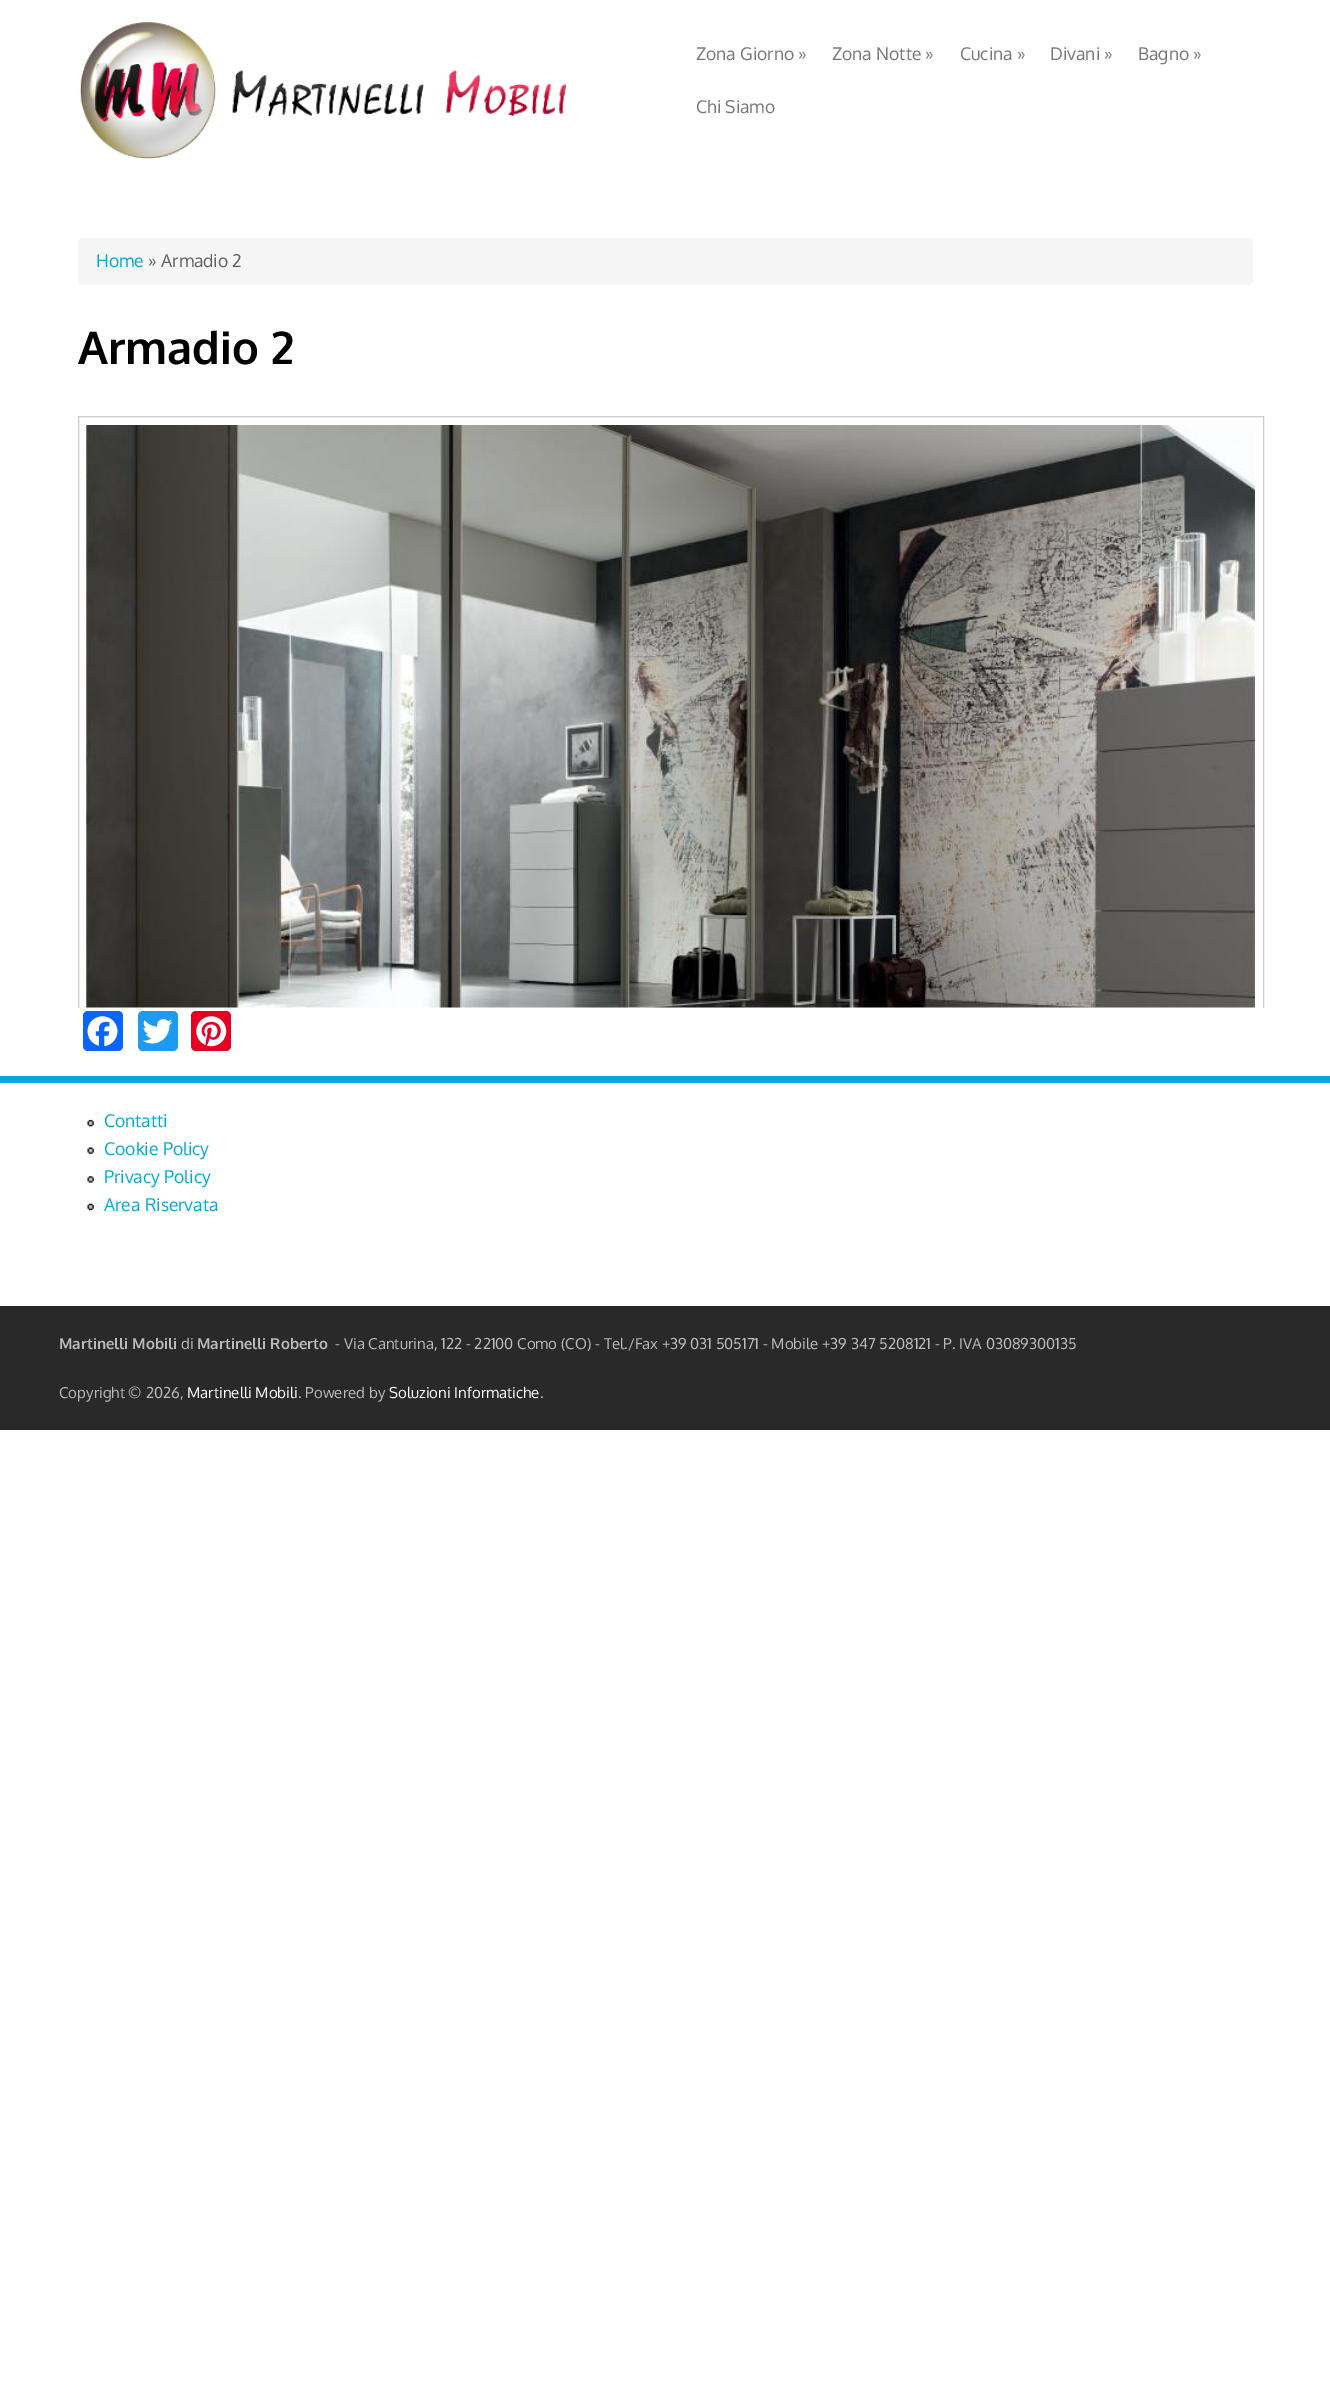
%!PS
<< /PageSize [1330 2401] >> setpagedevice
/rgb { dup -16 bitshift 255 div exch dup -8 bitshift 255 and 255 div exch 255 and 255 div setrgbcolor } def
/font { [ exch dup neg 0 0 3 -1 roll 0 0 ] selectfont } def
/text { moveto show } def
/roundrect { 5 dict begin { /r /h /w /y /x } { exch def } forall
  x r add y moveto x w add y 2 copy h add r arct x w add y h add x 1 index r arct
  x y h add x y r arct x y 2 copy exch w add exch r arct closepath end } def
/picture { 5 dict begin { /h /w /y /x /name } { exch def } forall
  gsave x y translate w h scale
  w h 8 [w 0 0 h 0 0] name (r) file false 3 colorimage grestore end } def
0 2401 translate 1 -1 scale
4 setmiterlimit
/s1 { /Oxygen-Regular 17.5 font 16#777777 rgb } def
/s2 { /Oxygen-Regular 17.5 font 16#00AAD8 rgb } def
/s3 { /Oxygen-Regular 17.5 font 16#606060 rgb } def
/s4 { /Oxygen-Bold 45 font 16#000000 rgb } def
/s5 { /Oxygen-Bold 15 font 16#BBBBBB rgb } def
/s6 { /Oxygen-Regular 15 font 16#BBBBBB rgb } def
/s7 { /Oxygen-Regular 15 font 16#FFFFFF rgb } def
16#FFFFFF rgb
0 0 1330 2401 rectfill
(pic1.raw) 79 22 488 137 picture
s1
(Zona Giorno ») 696 60 text
(Zona Notte ») 832 60 text
(Cucina ») 960 60 text
(Divani ») 1050 60 text
(Bagno ») 1138 60 text
(Chi Siamo) 696 113 text
16#F5F5F5 rgb
78 238 1175 47 5 roundrect fill
s2
(Home) 96 267 text
s3
(» Armadio 2) 148 267 text
s4
(Armadio 2) 78 364 text
16#0866FF rgb
83 1011 40 40 5 roundrect fill
16#1D9BF0 rgb
138 1011 40 40 5 roundrect fill
16#E60023 rgb
191 1011 40 40 5 roundrect fill
gsave
78 408 1200 600 rectclip
16#CCCCCC rgb
78.5 416.5 1185 601 rectstroke
grestore
(pic2.raw) 86 425 1169 583 picture
(pic3.raw) 87 1016 31 31 picture
(pic4.raw) 142 1019 31 25 picture
(pic5.raw) 196 1016 31 31 picture
16#00AAD8 rgb
0 1076 1330 7 rectfill
(pic6.raw) 87 1119 7 8 picture
s2
(Contatti) 104 1127 text
(pic7.raw) 87 1147 7 7 picture
(Cookie Policy) 104 1155 text
(pic8.raw) 87 1176 7 7 picture
(Privacy Policy) 104 1183 text
(pic9.raw) 87 1203 7 8 picture
(Area Riservata) 104 1211 text
16#292929 rgb
0 1306 1330 124 rectfill
s5
(Martinelli Mobili) 59 1349 text
s6
(di) 181 1349 text
s5
(Martinelli Roberto) 197 1349 text
s6
(- Via Canturina, 122 - 22100 Como \(CO\) - Tel./Fax +39 031 505171 - Mobile +39 347 5208121 - P. IVA 03089300135) 335 1349 text
(Copyright © 2026,) 59 1398 text
s7
(Martinelli Mobili) 187 1398 text
s6
(. Powered by) 298 1398 text
s7
(Soluzioni Informatiche) 389 1398 text
s6
(.) 540 1398 text
showpage
